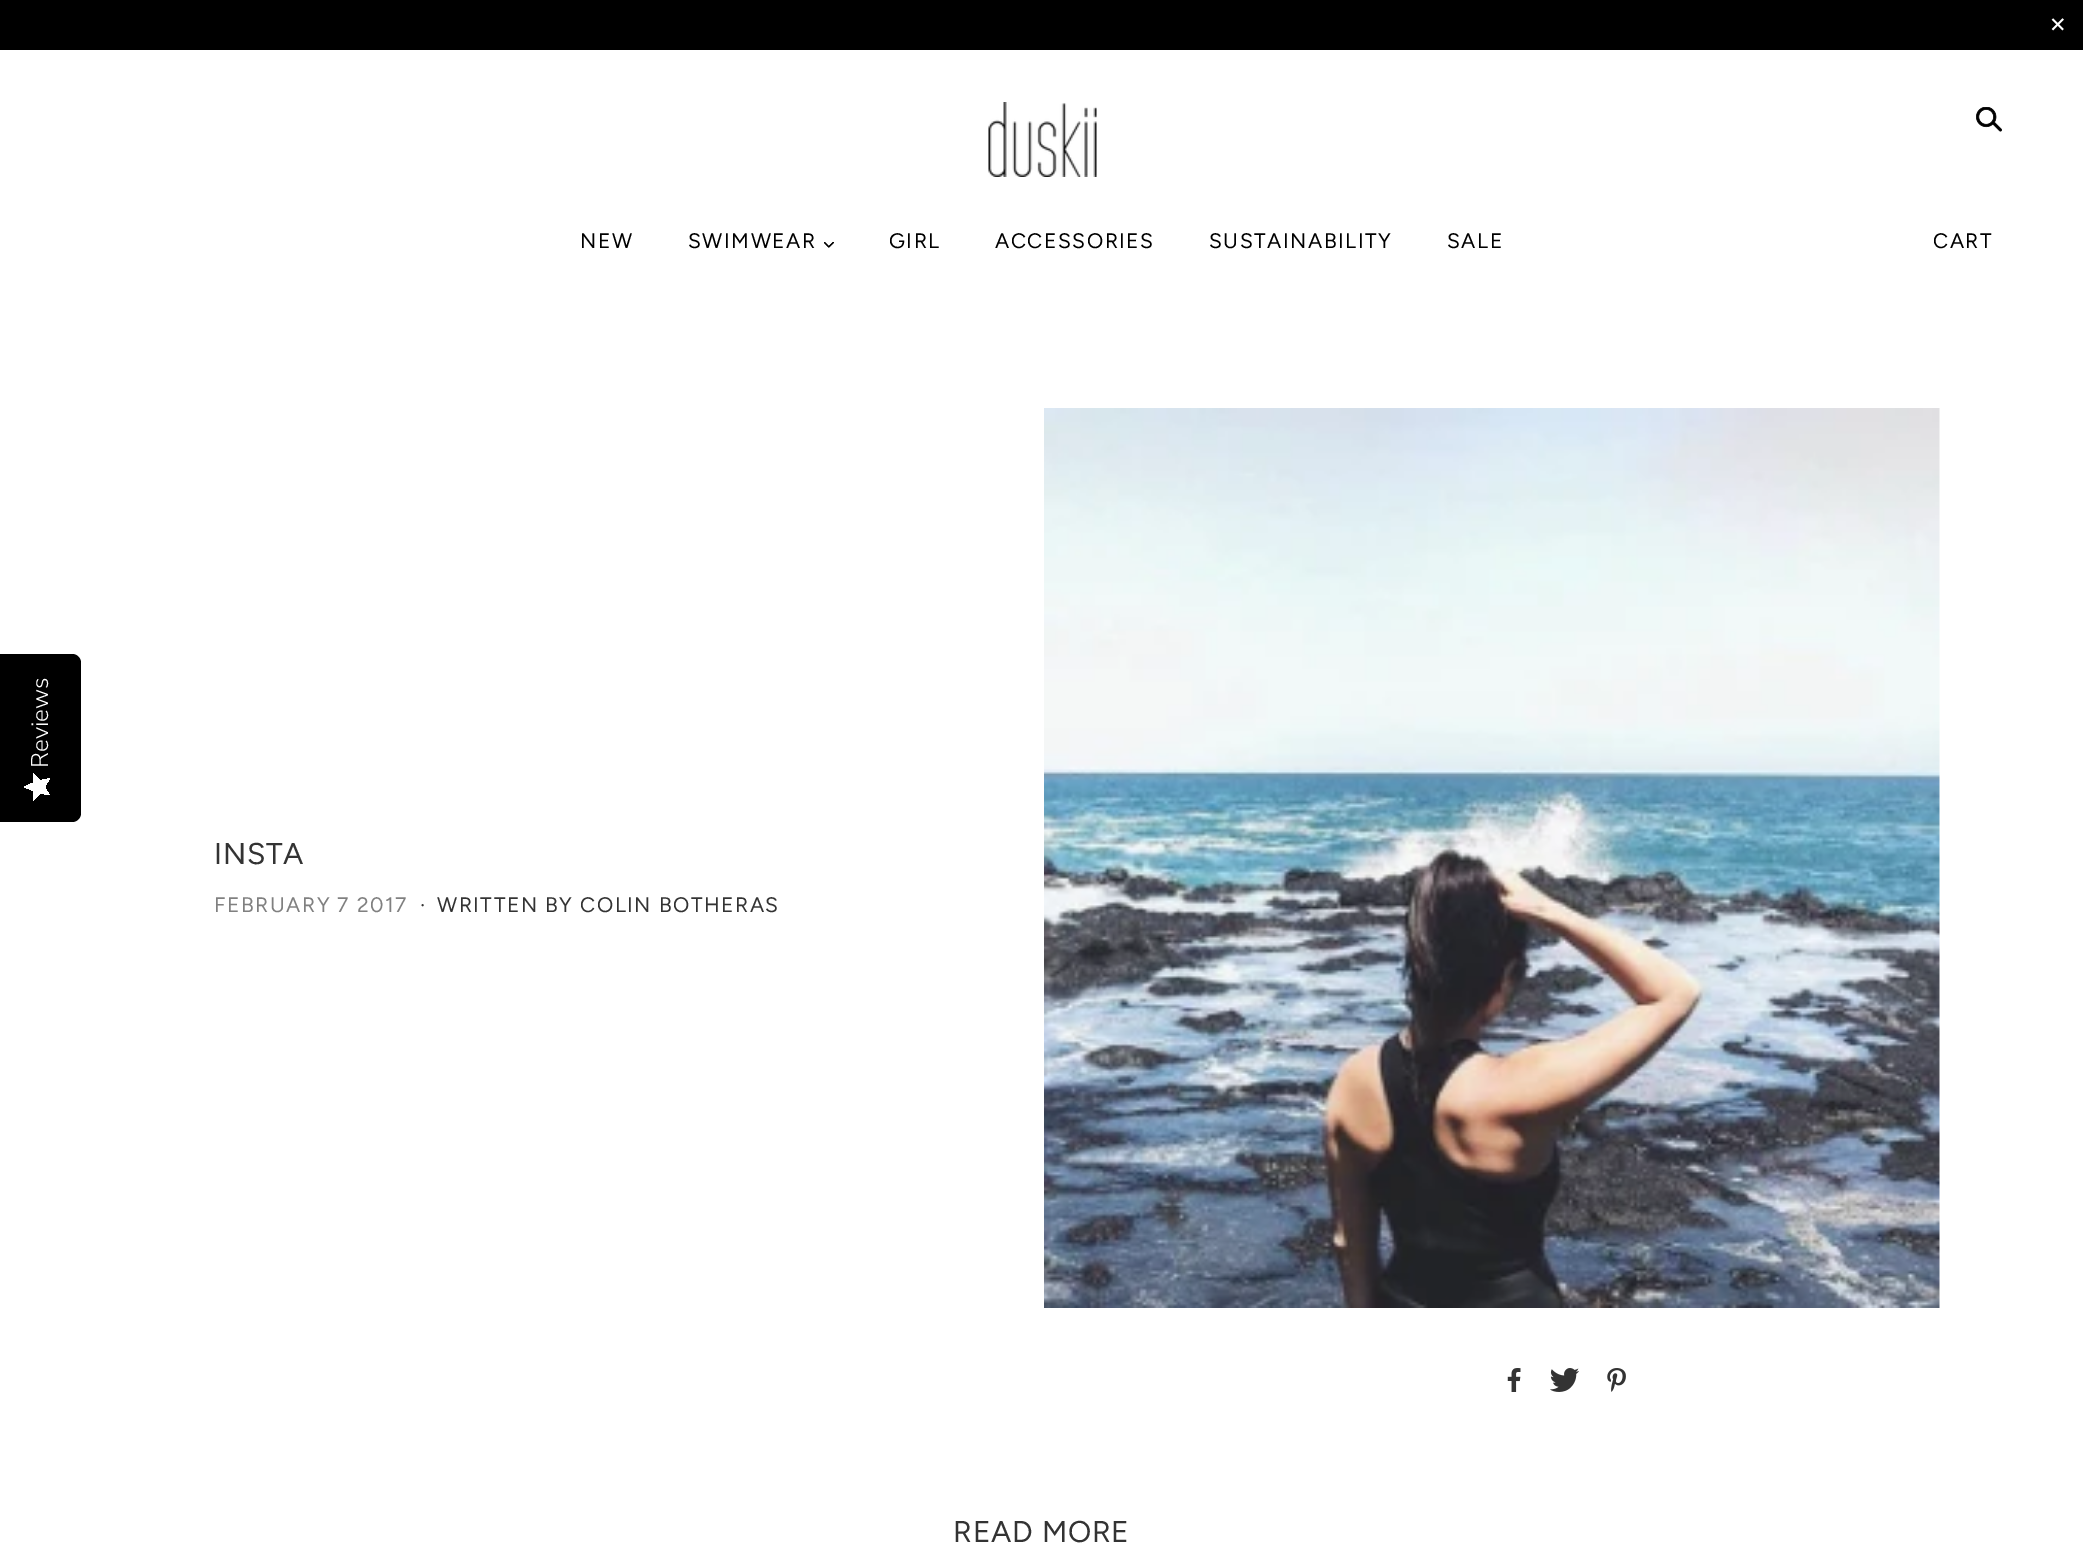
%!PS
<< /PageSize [2083 1556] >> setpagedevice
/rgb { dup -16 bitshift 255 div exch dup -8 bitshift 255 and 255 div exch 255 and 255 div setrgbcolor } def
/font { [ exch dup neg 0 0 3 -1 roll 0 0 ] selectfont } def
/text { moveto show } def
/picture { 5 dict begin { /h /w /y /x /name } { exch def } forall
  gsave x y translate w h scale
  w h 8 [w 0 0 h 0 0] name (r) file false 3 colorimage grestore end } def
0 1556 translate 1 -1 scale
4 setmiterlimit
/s1 { /Figtree-Regular 21 font 16#333333 rgb } def
16#FFFFFF rgb
0 0 2083 1556 rectfill
16#000000 rgb
0 822 moveto 0 654 lineto 72 654 lineto 77 654 81 658 81 663 curveto 81 813 lineto 81 818 77 822 72 822 curveto closepath fill
/NunitoSans-Light 24 font
16#FFFFFF rgb
gsave 48 768 translate -90 rotate 0 0 moveto (Reviews) show grestore
gsave 44.5 787 moveto 49.5 778.5 lineto 40 780.5 lineto 33.5 773.5 lineto 33 783 lineto 24 787 lineto 33 790.5 lineto 33.5 800.5 lineto 40 793 lineto 49.5 795 lineto closepath clip newpath
<< /ShadingType 2 /ColorSpace /DeviceRGB /Coords [24 800 24 773] /Extend [true true] /Function << /FunctionType 2 /Domain [0 1] /C0 [0.996 0.996 0.996] /C1 [0.996 0.996 0.996] /N 1 >> >> shfill grestore
16#000000 rgb
0 0 2083 50 rectfill
/DejaVuSans-Regular 21 font
16#FFFFFF rgb
2049 32 moveto 1.5 0 (✕) ashow
(pic1.raw) 988 102 109 75 picture
(pic2.raw) 1976 107 26 25 picture
/Figtree-Regular 21 font
16#000000 rgb
580 248 moveto 1.5 0 (NEW) ashow
688 248 moveto 1.5 0 (SWIMWEAR) ashow
(pic3.raw) 824 242 10 6 picture
889 248 moveto 1.5 0 (GIRL) ashow
995 248 moveto 1.5 0 (ACCESSORIES) ashow
1209 248 moveto 1.5 0 (SUSTAINABILITY) ashow
1447 248 moveto 1.5 0 (SALE) ashow
1933 248 moveto 1.5 0 (CART) ashow
/Figtree-Regular 30 font
16#333333 rgb
214 864 moveto 0.75 0 (INSTA) ashow
/Figtree-Regular 21 font
16#808080 rgb
214 912 moveto 1.5 0 (FEBRUARY 7 2017) ashow
s1
(·) 420 912 text
437 912 moveto 1.5 0 (WRITTEN BY COLIN BOTHERAS) ashow
(pic4.raw) 1044 408 896 900 picture
(pic5.raw) 1507 1368 14 24 picture
(pic6.raw) 1550 1368 29 24 picture
(pic7.raw) 1607 1368 19 24 picture
/Figtree-Regular 30 font
953 1542 moveto 0.75 0 (READ MORE) ashow
showpage
